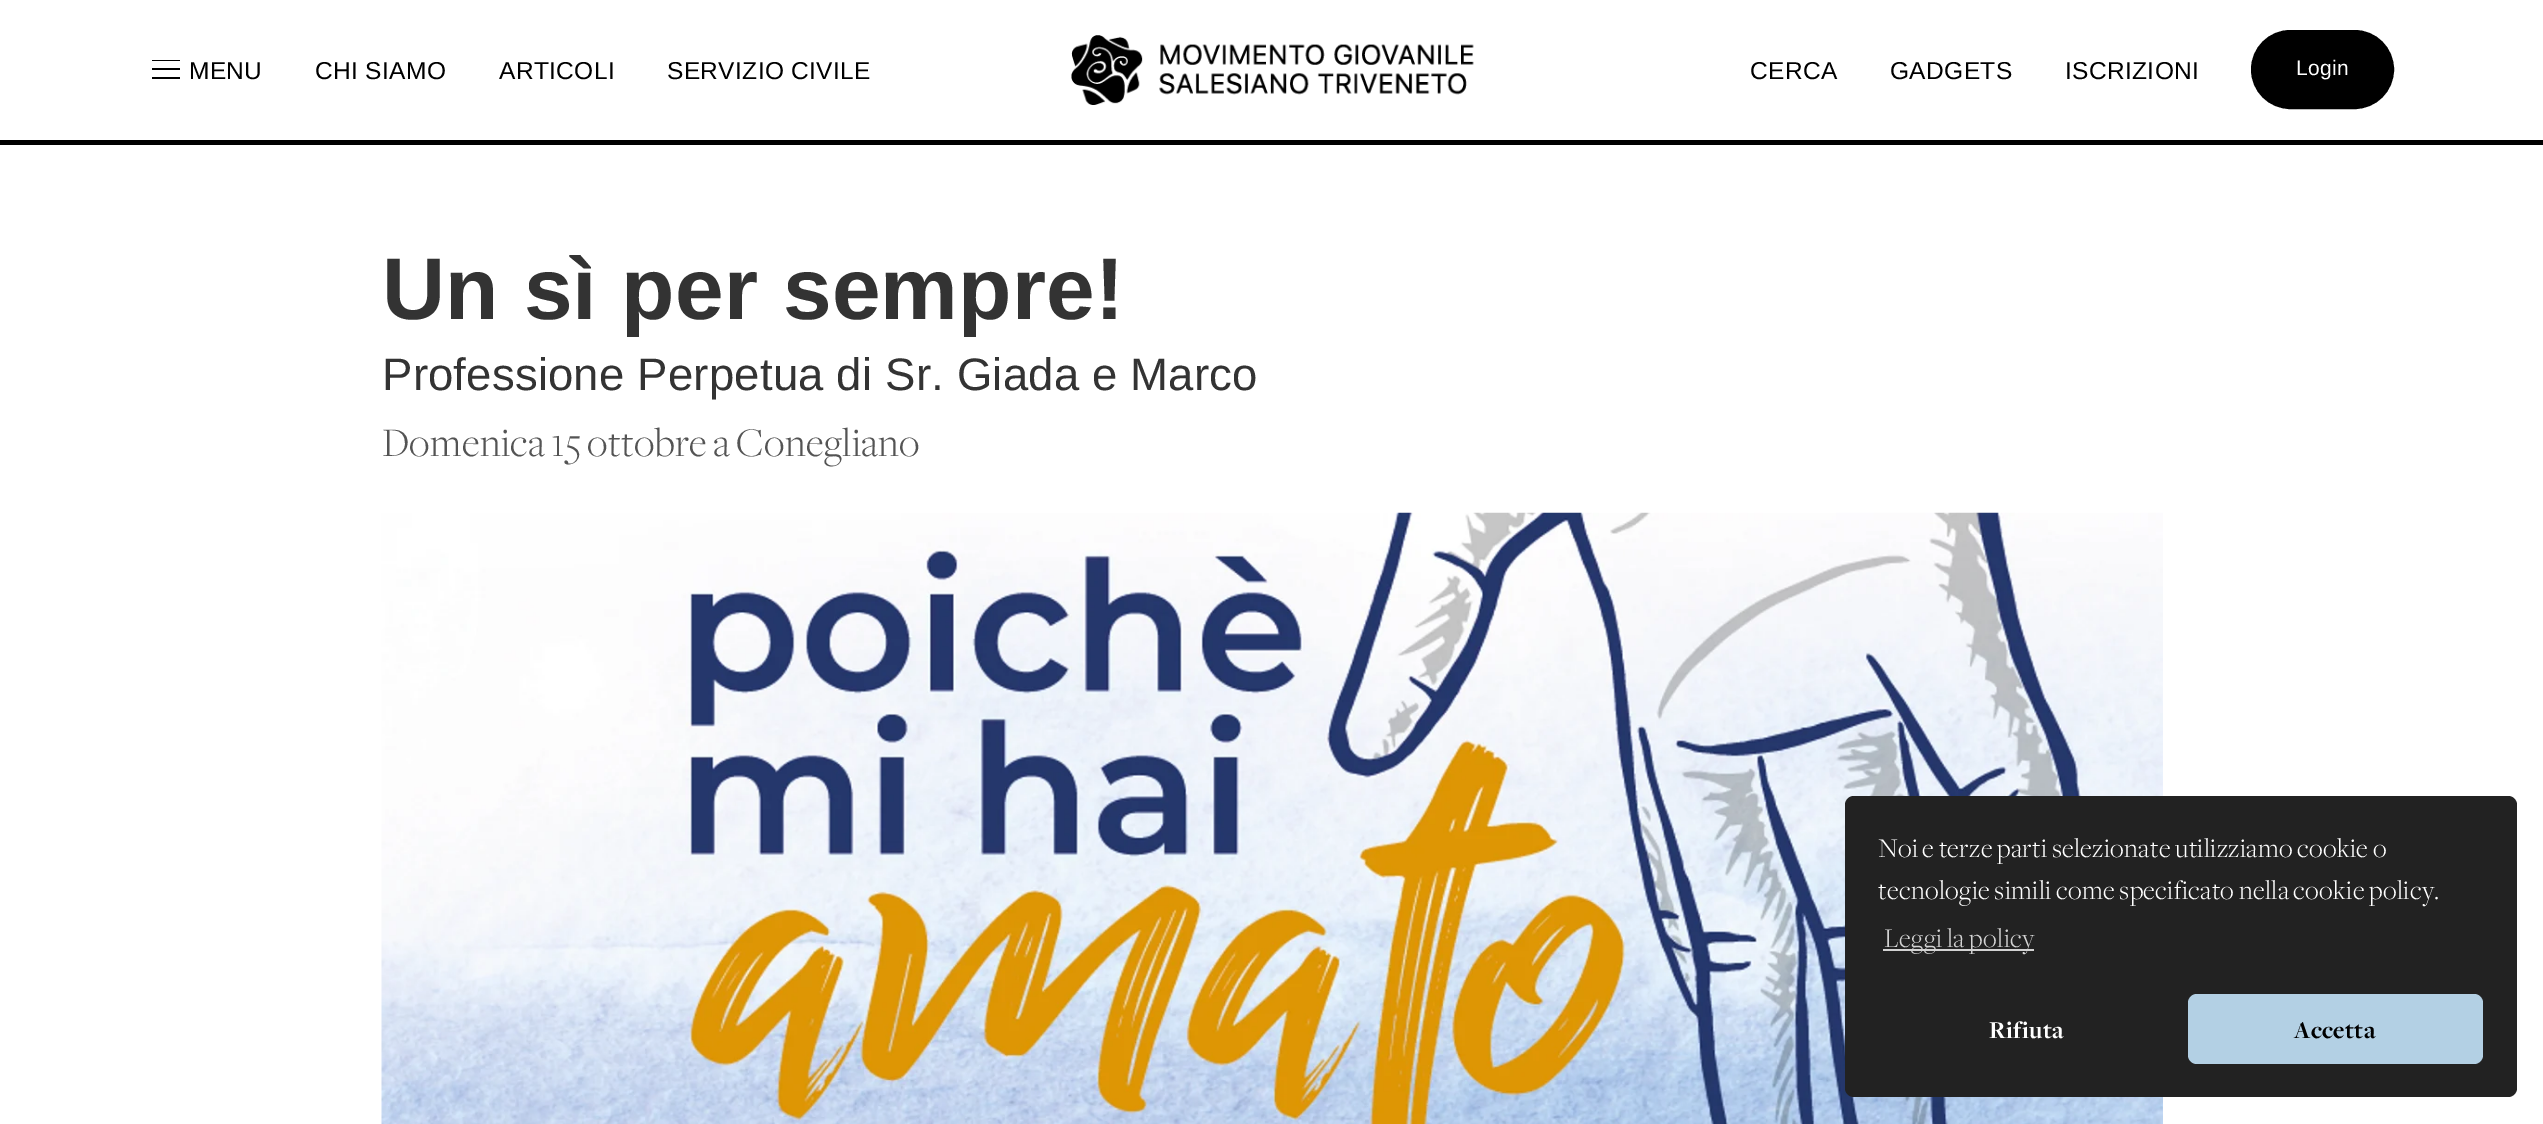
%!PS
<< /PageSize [2543 1124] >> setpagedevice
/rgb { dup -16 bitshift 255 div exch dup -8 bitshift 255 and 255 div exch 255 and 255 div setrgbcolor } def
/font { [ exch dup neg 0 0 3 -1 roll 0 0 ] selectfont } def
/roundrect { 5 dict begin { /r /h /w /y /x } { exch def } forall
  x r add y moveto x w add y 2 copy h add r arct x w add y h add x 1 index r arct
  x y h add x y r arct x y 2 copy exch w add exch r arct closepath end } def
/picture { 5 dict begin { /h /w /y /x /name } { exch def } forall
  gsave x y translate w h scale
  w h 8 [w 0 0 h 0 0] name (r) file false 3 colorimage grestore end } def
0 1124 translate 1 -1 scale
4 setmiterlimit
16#FFFFFF rgb
0 0 2543 1124 rectfill
16#000000 rgb
0 140 2543 5 rectfill
152 60 28 1 rectfill
152 68 28 2 rectfill
152 77 28 2 rectfill
/LiberationSans-Regular 24.5 font
189 79 moveto 0.35 0 (MENU) ashow
315 79 moveto 0.35 0 (CHI SIAMO) ashow
499 79 moveto 0.35 0 (ARTICOLI) ashow
667 79 moveto 0.35 0 (SERVIZIO CIVILE) ashow
(pic1.raw) 1071 35 403 70 picture
1750 79 moveto 0.35 0 (CERCA) ashow
1890 79 moveto 0.35 0 (GADGETS) ashow
2065 79 moveto 0.35 0 (ISCRIZIONI) ashow
2252 31 141 77 38.5 roundrect gsave fill grestore
2 setlinewidth
stroke
/LiberationSans-Regular 21 font
16#FFFFFF rgb
2296 75 moveto 0.35 0 (Login) ashow
/LiberationSans-Bold 87.5 font
16#333333 rgb
382 319 moveto 0.2 0 (Un sì per sempre!) ashow
/LiberationSans-Regular 45.5 font
382 390 moveto 0.2 0 (Professione Perpetua di Sr. Giada e Marco) ashow
/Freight-Light 42 font
16#545454 rgb
382 456 moveto 0.35 0 (Domenica 15 ottobre a Conegliano) ashow
(pic2.raw) 381 512 1782 612 picture
16#222222 rgb
1845 796 672 301 9 roundrect fill
/Freight-Light 28 font
16#FFFFFF rgb
1878 857 moveto 0.35 0 (Noi e terze parti selezionate utilizziamo cookie o) ashow
1878 899 moveto 0.35 0 (tecnologie simili come specificato nella cookie policy.) ashow
16#D3D3D3 rgb
1883 949 151 2 rectfill
1884 947 moveto 0.35 0 (Leggi la policy) ashow
/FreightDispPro-Bold 25 font
16#FFFFFF rgb
1989 1038 moveto 0.35 0 (Rifiuta) ashow
16#B3D0E4 rgb
2188 994 295 70 9 roundrect fill
16#000000 rgb
2294 1038 moveto 0.35 0 (Accetta) ashow
showpage
